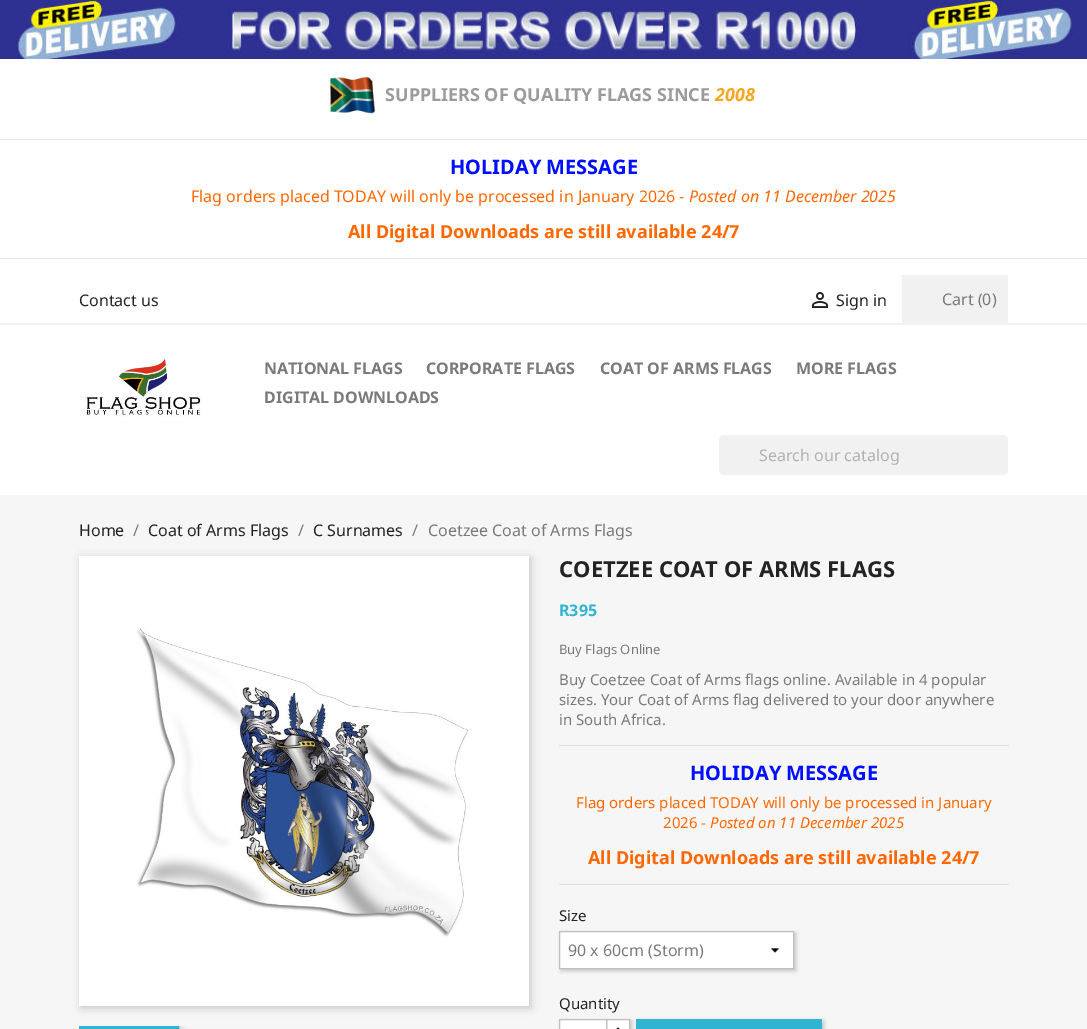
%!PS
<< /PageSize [1087 1029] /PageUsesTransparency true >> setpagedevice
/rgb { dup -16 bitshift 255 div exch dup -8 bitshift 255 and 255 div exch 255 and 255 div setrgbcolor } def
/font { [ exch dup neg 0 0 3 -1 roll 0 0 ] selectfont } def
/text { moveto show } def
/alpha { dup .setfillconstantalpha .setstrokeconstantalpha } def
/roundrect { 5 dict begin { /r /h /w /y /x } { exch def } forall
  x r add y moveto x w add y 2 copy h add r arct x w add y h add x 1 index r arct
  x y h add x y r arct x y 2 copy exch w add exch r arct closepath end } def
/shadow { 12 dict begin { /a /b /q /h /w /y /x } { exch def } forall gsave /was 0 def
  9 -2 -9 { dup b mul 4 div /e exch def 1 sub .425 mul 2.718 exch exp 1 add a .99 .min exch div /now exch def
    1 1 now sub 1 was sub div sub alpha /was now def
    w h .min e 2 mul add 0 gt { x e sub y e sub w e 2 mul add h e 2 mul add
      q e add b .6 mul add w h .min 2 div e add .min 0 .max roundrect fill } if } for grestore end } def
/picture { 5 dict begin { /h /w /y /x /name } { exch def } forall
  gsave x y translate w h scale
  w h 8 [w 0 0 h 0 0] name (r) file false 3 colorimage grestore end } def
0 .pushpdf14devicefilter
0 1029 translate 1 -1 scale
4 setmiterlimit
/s1 { /NotoSans-Bold 18 font 16#9B9B9B rgb } def
/s2 { /NotoSans-BoldItalic 18 font 16#F5A623 rgb } def
/s3 { /NotoSans-Bold 20 font 16#000FFF rgb } def
/s4 { /NotoSans-Regular 16 font 16#FF6700 rgb } def
/s5 { /NotoSans-Italic 16 font 16#FF6700 rgb } def
/s6 { /NotoSans-Bold 18 font 16#FF6700 rgb } def
/s7 { /NotoSans-Regular 16 font 16#232323 rgb } def
/s8 { /NotoSans-Regular 16 font 16#7A7A7A rgb } def
/s9 { /NotoSans-Bold 16 font 16#7A7A7A rgb } def
/s10 { /NotoSans-Regular 16 font 16#B1B1B1 rgb } def
/s11 { /NotoSans-Bold 22 font 16#232323 rgb } def
/s12 { /NotoSans-Bold 16 font 16#2FB5D2 rgb } def
/s13 { /NotoSans-Regular 13 font 16#7A7A7A rgb } def
/s14 { /NotoSans-Regular 15 font 16#7A7A7A rgb } def
/s15 { /NotoSans-Regular 15 font 16#FF6700 rgb } def
/s16 { /NotoSans-Italic 15 font 16#FF6700 rgb } def
/s17 { /NotoSans-Regular 15 font 16#232323 rgb } def
16#FFFFFF rgb
0 0 1087 1029 rectfill
(pic1.raw) 0 0 1087 59 picture
(pic2.raw) 329 76 47 38 picture
s1
(SUPPLIERS OF QUALITY FLAGS SINCE) 385 101 text
s2
(2008) 715 101 text
16#E6E6E6 rgb
0 139 1087 1 rectfill
s3
(HOLIDAY MESSAGE) 450 174 text
s4
(Flag orders placed TODAY will only be processed in January 2026 -) 191 202 text
s5
(Posted on 11 December 2025) 689 202 text
s6
(All Digital Downloads are still available 24/7) 348 238 text
16#E6E6E6 rgb
0 258 1087 1 rectfill
16#F1F1F1 rgb
0 323 1087 2 rectfill
s7
(Contact us) 79 306 text
(pic3.raw) 812 292 16 16 picture
(Sign in) 836 306 text
16#F1F1F1 rgb
902 275 106 48 rectfill
s8
(Cart \(0\)) 942 305 text
(pic4.raw) 84 357 118 60 picture
s9
(NATIONAL FLAGS) 264 374 text
(CORPORATE FLAGS) 426 374 text
(COAT OF ARMS FLAGS) 600 374 text
(MORE FLAGS) 796 374 text
(DIGITAL DOWNLOADS) 264 403 text
16#F1F1F1 rgb
719 435 289 40 5 roundrect fill
s10
(Search our catalog) 759 461 text
16#F6F6F6 rgb
0 495 1087 534 rectfill
s7
(Home) 79 536 text
s8
(/) 133 536 text
s7
(Coat of Arms Flags) 148 536 text
s8
(/) 298 536 text
s7
(C Surnames) 313 536 text
s8
(/) 412 536 text
(Coetzee Coat of Arms Flags) 428 536 text
16#000000 rgb
81 558 450 450 0 4 0.2 shadow
16#FFFFFF rgb
79 556 450 450 rectfill
(pic5.raw) 136 628 333 309 picture
gsave
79 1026 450 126 rectclip
16#000000 rgb
81 1028 100 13 0 4 0.2 shadow
grestore
16#2FB5D2 rgb
3 setlinewidth
80.5 1027.5 97 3 rectstroke
s11
(COETZEE COAT OF ARMS FLAGS) 559 577 text
s12
(R395) 559 616 text
s13
(Buy Flags Online) 559 654 text
s14
(Buy Coetzee Coat of Arms flags online. Available in 4 popular) 559 685 text
(sizes. Your Coat of Arms flag delivered to your door anywhere) 559 705 text
(in South Africa.) 559 725 text
16#DDDDDD rgb
559 745 450 1 rectfill
s3
(HOLIDAY MESSAGE) 690 780 text
s15
(Flag orders placed TODAY will only be processed in January) 576 808 text
(2026 -) 663 828 text
s16
(Posted on 11 December 2025) 710 828 text
s6
(All Digital Downloads are still available 24/7) 588 864 text
16#DDDDDD rgb
559 884 450 1 rectfill
s17
(Size) 559 921 text
16#000000 rgb
561 933 235 38 0 2 0.2 shadow
16#FFFFFF rgb
560 932 233 36 rectfill
(pic6.raw) 771 948 9 5 picture
16#BFBFBF rgb
1 setlinewidth
559.5 931.5 234 37 rectstroke
s8
(90 x 60cm \(Storm\)) 568 956 text
s17
(Quantity) 559 1009 text
16#000000 rgb
638 1021 186 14 0 2 0.2 shadow
16#2FB5D2 rgb
636 1019 186 10 rectfill
16#000000 rgb
561 1021 71 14 0 2 0.2 shadow
16#FFFFFF rgb
606.5 1019.5 moveto 629.5 1019.5 lineto 629.5 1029.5 lineto 606.5 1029.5 lineto closepath gsave fill grestore
16#BFBFBF rgb
stroke
16#FFFFFF rgb
559.5 1019.5 moveto 606.5 1019.5 lineto 606.5 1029.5 lineto 559.5 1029.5 lineto closepath gsave fill grestore
16#BFBFBF rgb
stroke
(pic7.raw) 616 1027 4 2 picture
.poppdf14devicefilter showpage
